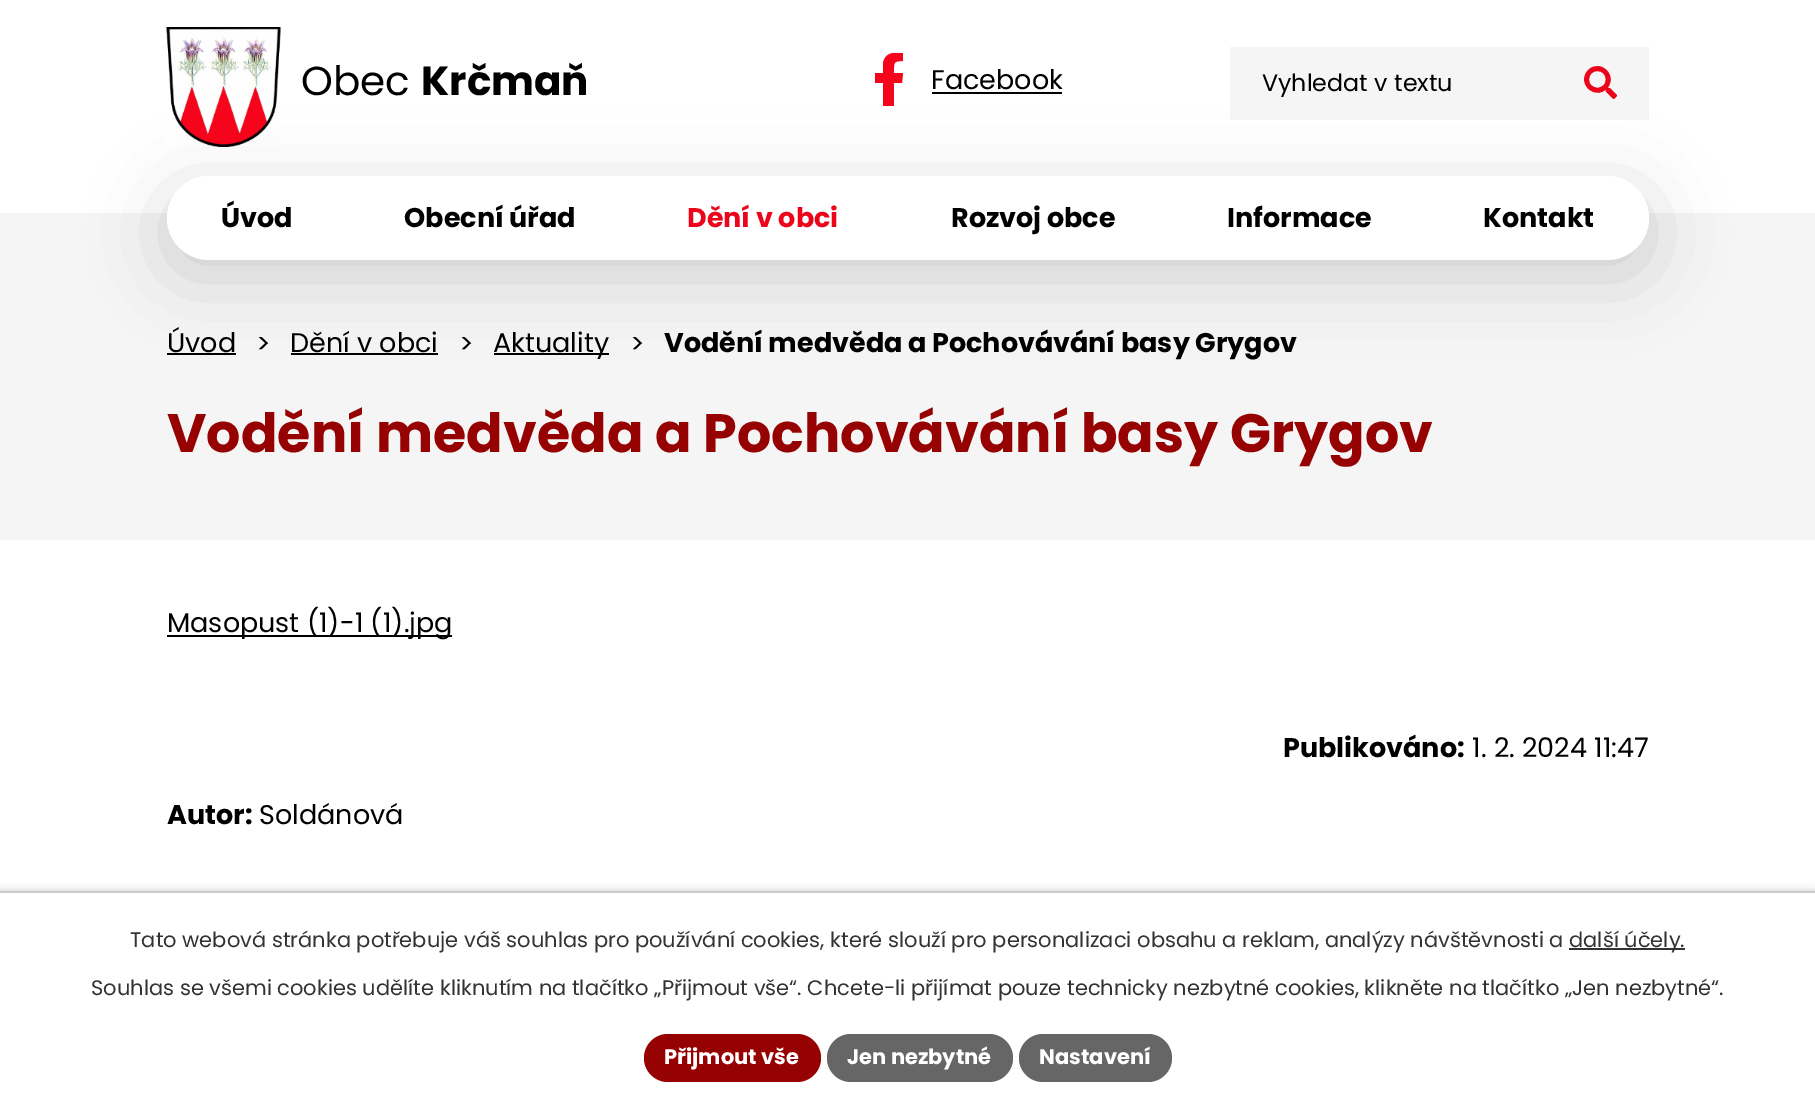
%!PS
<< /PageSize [1815 1110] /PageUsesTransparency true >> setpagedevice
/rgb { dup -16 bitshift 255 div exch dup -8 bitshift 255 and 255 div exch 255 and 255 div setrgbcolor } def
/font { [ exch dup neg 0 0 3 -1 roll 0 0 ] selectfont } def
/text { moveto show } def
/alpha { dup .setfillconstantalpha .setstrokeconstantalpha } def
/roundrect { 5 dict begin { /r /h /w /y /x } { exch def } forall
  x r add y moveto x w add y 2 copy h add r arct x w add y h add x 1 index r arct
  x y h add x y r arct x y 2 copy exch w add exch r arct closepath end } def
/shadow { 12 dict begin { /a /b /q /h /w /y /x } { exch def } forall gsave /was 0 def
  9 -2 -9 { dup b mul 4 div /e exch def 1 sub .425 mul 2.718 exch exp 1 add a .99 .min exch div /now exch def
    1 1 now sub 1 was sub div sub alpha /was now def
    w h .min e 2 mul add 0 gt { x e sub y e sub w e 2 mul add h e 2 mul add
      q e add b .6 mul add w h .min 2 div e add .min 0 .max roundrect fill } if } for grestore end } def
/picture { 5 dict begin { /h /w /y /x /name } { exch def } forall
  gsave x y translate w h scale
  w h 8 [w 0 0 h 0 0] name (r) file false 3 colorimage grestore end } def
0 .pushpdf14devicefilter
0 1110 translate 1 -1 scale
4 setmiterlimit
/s1 { /Poppins-Regular 40.5 font 16#000000 rgb } def
/s2 { /Poppins-Bold 40.5 font 16#000000 rgb } def
/s3 { /Poppins-Regular 27 font 16#000000 rgb } def
/s4 { /Poppins-Regular 23.75 font 16#000000 rgb } def
/s5 { /Poppins-Bold 27 font 16#000000 rgb } def
/s6 { /Poppins-Bold 27 font 16#EC041B rgb } def
/s7 { /Poppins-Bold 54 font 16#960101 rgb } def
/s8 { /Poppins-Regular 21 font 16#333333 rgb } def
/s9 { /Poppins-Bold 21 font 16#FFFFFF rgb } def
16#FFFFFF rgb
0 0 1815 1110 rectfill
gsave
875 53 28 54 rectclip
16#F6041C rgb
902 83 moveto 903 73 lineto 894 73 lineto 894 63 893 61 903 61 curveto 903 53 lineto 895 52 885 52 883 63 curveto 883 73 lineto 874 73 lineto 874 83 lineto 883 83 lineto 883 106 lineto 894 106 lineto 894 83 lineto closepath fill
grestore
16#000000 rgb
932 92 130 2 rectfill
16#F5F5F5 rgb
0 213 1815 327 rectfill
16#000000 rgb
167 191 1482 84 42 37.5 0.16 shadow
(pic1.raw) 166 27 115 120 picture
s1
(Obec) 301 95 text
s2
(Krčmaň) 421 95 text
s3
(Facebook) 931 89 text
16#F5F5F5 rgb
1230 47 419 73 rectfill
s4
(Vyhledat v textu) 1262 91 text
(pic2.raw) 1584 66 33 33 picture
16#FFFFFF rgb
167 176 1482 84 42 roundrect fill
s5
(Úvod) 221 227 text
(Obecní úřad) 404 227 text
s6
(Dění v obci) 687 227 text
s5
(Rozvoj obce) 951 227 text
(Informace) 1227 227 text
(Kontakt) 1483 227 text
s3
(Úvod) 167 352 text
167 353 69 2 rectfill
(>) 256 353 text
(Dění v obci) 290 352 text
291 353 147 2 rectfill
(>) 459 353 text
494 353 115 2 rectfill
(Aktuality) 493 352 text
(>) 630 353 text
s5
(Vodění medvěda a Pochovávání basy Grygov) 664 352 text
s7
(Vodění medvěda a Pochovávání basy Grygov) 167 452 text
16#000000 rgb
167 635 285 2 rectfill
s3
(Masopust \(1\)-1 \(1\).jpg) 167 632 text
s5
(Publikováno:) 1283 757 text
s3
(1. 2. 2024 11:47) 1472 757 text
s5
(Autor:) 167 824 text
s3
(Soldánová) 259 824 text
0 891 1815 219 0 4 0.2 shadow
16#FFFFFF rgb
0 893 1815 217 rectfill
16#CCCCCC rgb
0 891 1815 2 rectfill
s8
(Tato webová stránka potřebuje váš souhlas pro používání cookies, které slouží pro personalizaci obsahu a reklam, analýzy návštěvnosti a) 130 947 text
1569 948 116 2 rectfill
(další účely.) 1569 947 text
(Souhlas se všemi cookies udělíte kliknutím na tlačítko „Přijmout vše“. Chcete-li přijímat pouze technicky nezbytné cookies, klikněte na tlačítko „Jen nezbytné“.) 91 995 text
16#960101 rgb
644 1034 177 48 24 roundrect fill
s9
(Přijmout vše) 664 1064 text
16#666666 rgb
827 1034 186 48 24 roundrect fill
s9
(Jen nezbytné) 847 1064 text
16#666666 rgb
1019 1034 153 48 24 roundrect fill
s9
(Nastavení) 1039 1064 text
.poppdf14devicefilter showpage
